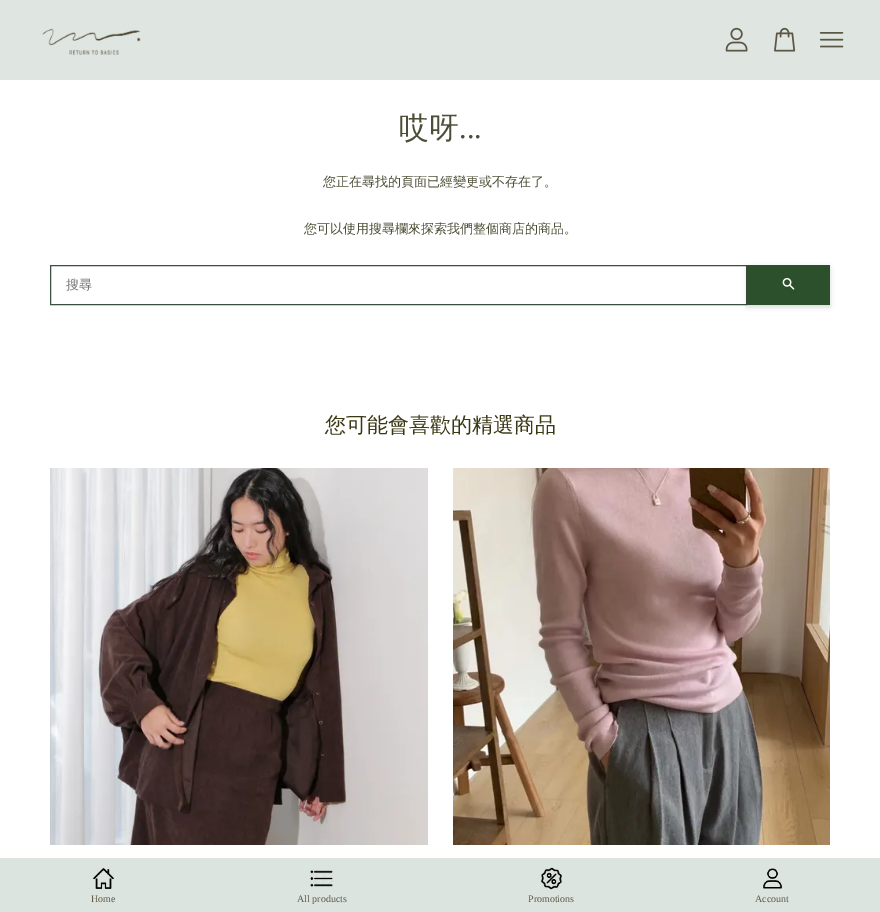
%!PS
<< /PageSize [880 912] /PageUsesTransparency true >> setpagedevice
/rgb { dup -16 bitshift 255 div exch dup -8 bitshift 255 and 255 div exch 255 and 255 div setrgbcolor } def
/font { [ exch dup neg 0 0 3 -1 roll 0 0 ] selectfont } def
/text { moveto show } def
/alpha { dup .setfillconstantalpha .setstrokeconstantalpha } def
/roundrect { 5 dict begin { /r /h /w /y /x } { exch def } forall
  x r add y moveto x w add y 2 copy h add r arct x w add y h add x 1 index r arct
  x y h add x y r arct x y 2 copy exch w add exch r arct closepath end } def
/shadow { 12 dict begin { /a /b /q /h /w /y /x } { exch def } forall gsave /was 0 def
  9 -2 -9 { dup b mul 4 div /e exch def 1 sub .425 mul 2.718 exch exp 1 add a .99 .min exch div /now exch def
    1 1 now sub 1 was sub div sub alpha /was now def
    w h .min e 2 mul add 0 gt { x e sub y e sub w e 2 mul add h e 2 mul add
      q e add b .6 mul add w h .min 2 div e add .min 0 .max roundrect fill } if } for grestore end } def
/picture { 5 dict begin { /h /w /y /x /name } { exch def } forall
  gsave x y translate w h scale
  w h 8 [w 0 0 h 0 0] name (r) file false 3 colorimage grestore end } def
0 .pushpdf14devicefilter
0 912 translate 1 -1 scale
4 setmiterlimit
/s1 { /WenQuanYiZenHei-Medium 30 font 16#4C4E36 rgb } def
/s2 { /LiberationSerif-Regular 30 font 16#4C4E36 rgb } def
/s3 { /WenQuanYiZenHei-Medium 13 font 16#4C4E36 rgb } def
/s4 { /WenQuanYiZenHei-Medium 13 font 16#757575 rgb } def
/s5 { /WenQuanYiZenHei-Medium 21 font 16#3B3814 rgb } def
/s6 { /LiberationSerif-Regular 10 font 16#5C5644 rgb } def
16#FFFFFF rgb
0 0 880 912 rectfill
16#DCE4DF rgb
0 858 880 54 rectfill
16#DFE6E2 rgb
0 0 880 80 rectfill
(pic1.raw) 42 28 99 27 picture
(pic2.raw) 725 27 23 25 picture
(pic3.raw) 774 27 22 25 picture
(pic4.raw) 819 32 25 16 picture
s1
(哎呀) 399 138 text
s2
(...) 459 138 text
s3
(您正在尋找的頁面已經變更或不存在了。) 323 186 text
(您可以使用搜尋欄來探索我們整個商店的商品。) 304 233 text
16#3B4F3F rgb
50.5 265.5 696 39 rectstroke
s4
(搜尋) 66 289 text
16#000000 rgb
747 267 83 40 0 2.5 0.15 shadow
16#2D502C rgb
747 265 83 40 rectfill
(pic5.raw) 782 278 13 12 picture
s5
(您可能會喜歡的精選商品) 325 432 text
(pic6.raw) 50 468 378 377 picture
(pic7.raw) 453 468 377 377 picture
(pic8.raw) 93 868 21 21 picture
s6
(Home) 91 902 text
(pic9.raw) 310 870 23 17 picture
(All products) 297 902 text
(pic10.raw) 541 867 21 23 picture
(Promotions) 528 902 text
(pic11.raw) 763 868 19 21 picture
(Account) 755 902 text
.poppdf14devicefilter showpage
